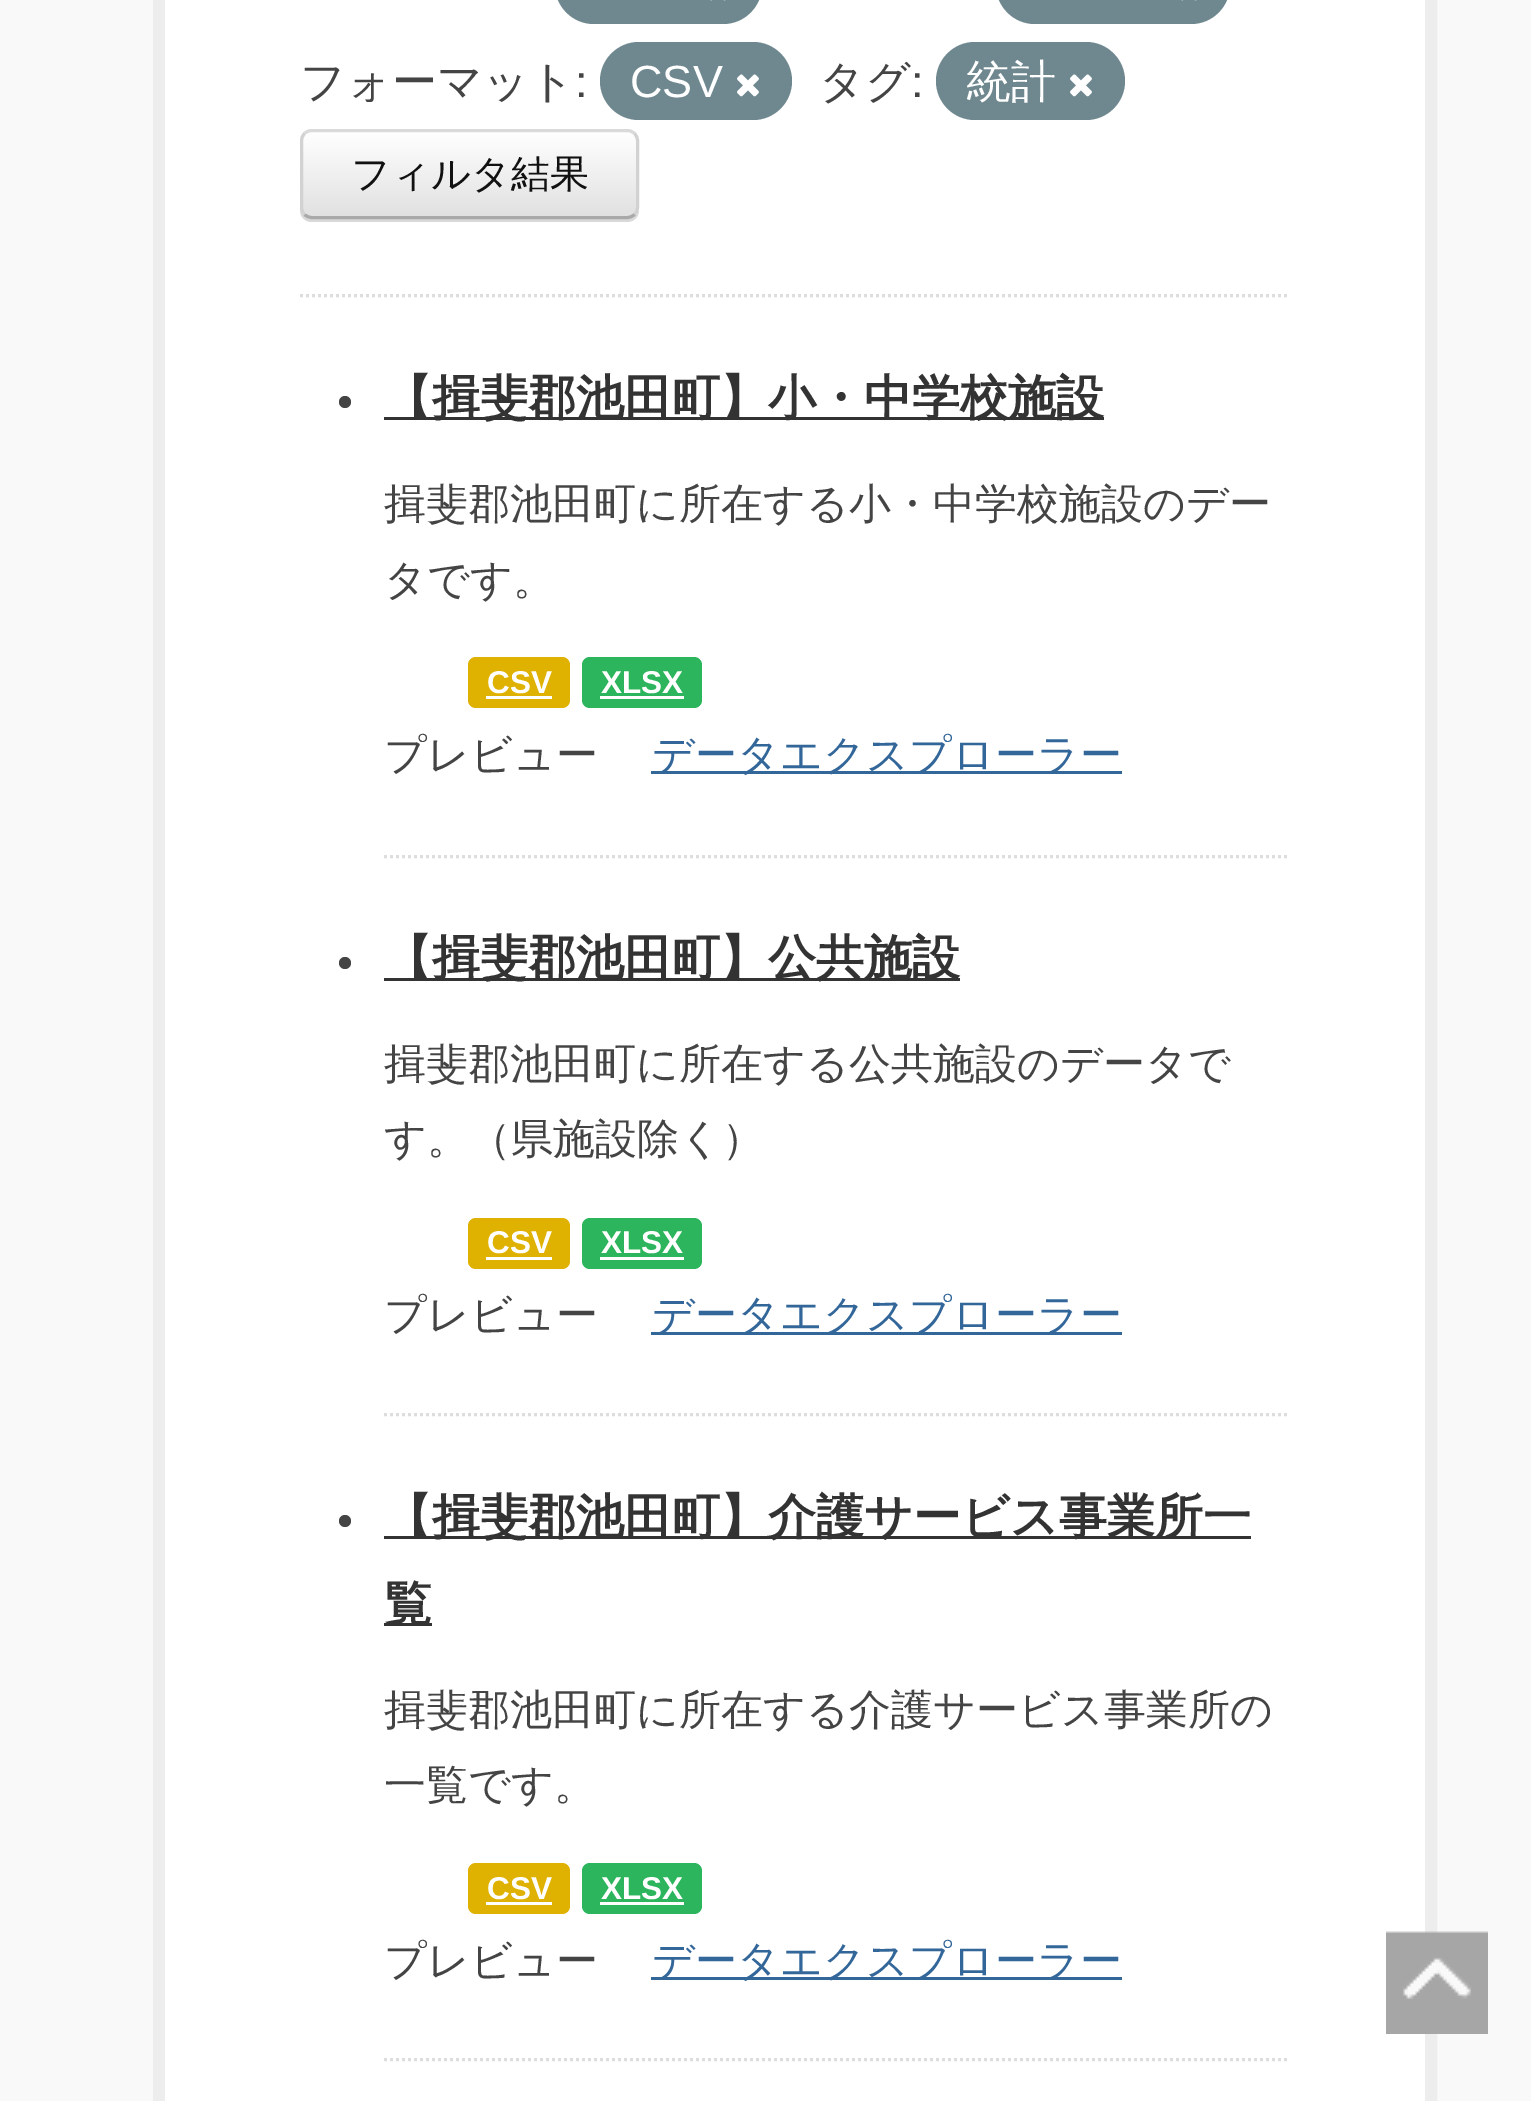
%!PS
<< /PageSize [1531 2101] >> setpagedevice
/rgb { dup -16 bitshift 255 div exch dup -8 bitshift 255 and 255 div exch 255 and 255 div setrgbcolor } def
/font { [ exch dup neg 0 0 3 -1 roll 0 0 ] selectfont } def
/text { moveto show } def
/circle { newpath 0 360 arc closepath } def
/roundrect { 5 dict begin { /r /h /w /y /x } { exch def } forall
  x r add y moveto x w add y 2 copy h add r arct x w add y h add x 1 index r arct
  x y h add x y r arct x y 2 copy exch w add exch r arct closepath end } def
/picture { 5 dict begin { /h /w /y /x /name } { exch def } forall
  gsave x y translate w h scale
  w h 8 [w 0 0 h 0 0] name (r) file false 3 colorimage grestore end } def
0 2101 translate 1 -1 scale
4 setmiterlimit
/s1 { /WenQuanYiZenHei-Medium 45 font 16#444444 rgb } def
/s2 { /LiberationSans-Regular 45 font 16#444444 rgb } def
/s3 { /LiberationSans-Regular 45 font 16#FFFFFF rgb } def
/s4 { /WenQuanYiZenHei-Medium 45 font 16#FFFFFF rgb } def
/s5 { /WenQuanYiZenHei-Medium 39 font 16#111111 rgb } def
/s6 { /WenQuanYiZenHei-Bold 48 font 16#333333 rgb } def
/s7 { /WenQuanYiZenHei-Medium 42 font 16#444444 rgb } def
/s8 { /LiberationSans-Bold 31.5 font 16#FFFFFF rgb } def
/s9 { /WenQuanYiZenHei-Medium 42 font 16#336699 rgb } def
16#F9F9F9 rgb
0 0 1531 2101 rectfill
16#EDEDED rgb
12 setlinewidth
159 -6 1272 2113 rectstroke
16#FFFFFF rgb
165 0 1260 2101 rectfill
16#DDDDDD rgb
3 setlinewidth
[3 3] 0 setdash
300 295.5 moveto 1290 295.5 lineto stroke
16#6F8890 rgb
555 -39 207 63 39 roundrect fill
(pic1.raw) 710 0 16 1 picture
996 -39 234 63 39 roundrect fill
(pic1.raw) 1181 0 16 1 picture
s1
(フォーマット) 300 97 text
s2
(:) 575 97 text
16#6F8890 rgb
600 42 192 78 39 roundrect fill
s3
(CSV) 630 97 text
(pic2.raw) 737 74 22 23 picture
s1
(タグ) 819 97 text
s2
(:) 911 97 text
16#6F8890 rgb
936 42 189 78 39 roundrect fill
s4
(統計) 966 97 text
(pic2.raw) 1070 74 22 23 picture
16#D9D9D9 rgb
300 207 moveto 300 210 lineto 300 217 305 222 312 222 curveto 627 222 lineto 634 222 639 217 639 210 curveto 639 207 lineto 639 214 634 219 627 219 curveto 312 219 lineto 305 219 300 214 300 207 curveto closepath fill
gsave
300 129 339 90 12 roundrect clip newpath
gsave 300 132 moveto 639 132 lineto 639 216 lineto 300 216 lineto closepath clip newpath
<< /ShadingType 2 /ColorSpace /DeviceRGB /Coords [303 132 303 216] /Extend [true true] /Function << /FunctionType 2 /Domain [0 1] /C0 [1 1 1] /C1 [0.882 0.882 0.882] /N 1 >> >> shfill grestore
grestore
16#DADADA rgb
[] 0 setdash
304.5 133.5 moveto 306.5 131.5 309 130.5 312 130.5 curveto 627 130.5 lineto 630 130.5 632.5 131.5 634.5 133.5 curveto stroke
16#D2D2D2 rgb
634.5 133.5 moveto 636.5 135.5 637.5 138 637.5 141 curveto 637.5 207 lineto 637.5 210 636.5 212.5 634.5 214.5 curveto stroke
16#A9A9A9 rgb
634.5 214.5 moveto 632.5 216.5 630 217.5 627 217.5 curveto 312 217.5 lineto 309 217.5 306.5 216.5 304.5 214.5 curveto stroke
16#D2D2D2 rgb
304.5 214.5 moveto 302.5 212.5 301.5 210 301.5 207 curveto 301.5 141 lineto 301.5 138 302.5 135.5 304.5 133.5 curveto stroke
s5
(フィルタ結果) 351 187 text
16#DDDDDD rgb
[3 3] 0 setdash
384 856.5 moveto 1290 856.5 lineto stroke
16#444444 rgb
345 402 6 circle fill
16#333333 rgb
384 417 720 3 rectfill
s6
(【揖斐郡池田町】小・中学校施設) 384 414 text
s7
(揖斐郡池田町に所在する小・中学校施設のデー) 384 518 text
(タです。) 384 594 text
16#DFB100 rgb
468 657 102 51 8 roundrect fill
s8
(CSV) 487 693 text
486 696 66 3 rectfill
16#2DB55D rgb
582 657 120 51 8 roundrect fill
s8
(XLSX) 601 693 text
600 696 84 3 rectfill
s7
(プレビュー) 384 769 text
16#336699 rgb
651 771 471 3 rectfill
(データエクスプローラー) 652 769 text
16#DDDDDD rgb
384 1414.5 moveto 1290 1414.5 lineto stroke
16#444444 rgb
345 963 6 circle fill
16#333333 rgb
384 978 576 3 rectfill
s6
(【揖斐郡池田町】公共施設) 384 974 text
s7
(揖斐郡池田町に所在する公共施設のデータで) 384 1078 text
(す。（県施設除く）) 384 1153 text
16#DFB100 rgb
468 1218 102 51 8 roundrect fill
s8
(CSV) 487 1253 text
486 1257 66 3 rectfill
16#2DB55D rgb
582 1218 120 51 8 roundrect fill
s8
(XLSX) 601 1253 text
600 1257 84 3 rectfill
s7
(プレビュー) 384 1329 text
16#336699 rgb
651 1332 471 3 rectfill
(データエクスプローラー) 652 1329 text
16#DDDDDD rgb
384 2059.5 moveto 1290 2059.5 lineto stroke
16#444444 rgb
345 1521 6 circle fill
16#333333 rgb
384 1536 867 3 rectfill
s6
(【揖斐郡池田町】介護サービス事業所一) 384 1533 text
384 1623 48 3 rectfill
(覧) 384 1620 text
s7
(揖斐郡池田町に所在する介護サービス事業所の) 384 1724 text
(一覧です。) 384 1799 text
16#DFB100 rgb
468 1863 102 51 8 roundrect fill
s8
(CSV) 487 1899 text
486 1902 66 3 rectfill
16#2DB55D rgb
582 1863 120 51 8 roundrect fill
s8
(XLSX) 601 1899 text
600 1902 84 3 rectfill
s7
(プレビュー) 384 1975 text
16#336699 rgb
651 1977 471 3 rectfill
(データエクスプローラー) 652 1975 text
(pic3.raw) 1386 1931 102 103 picture
showpage
